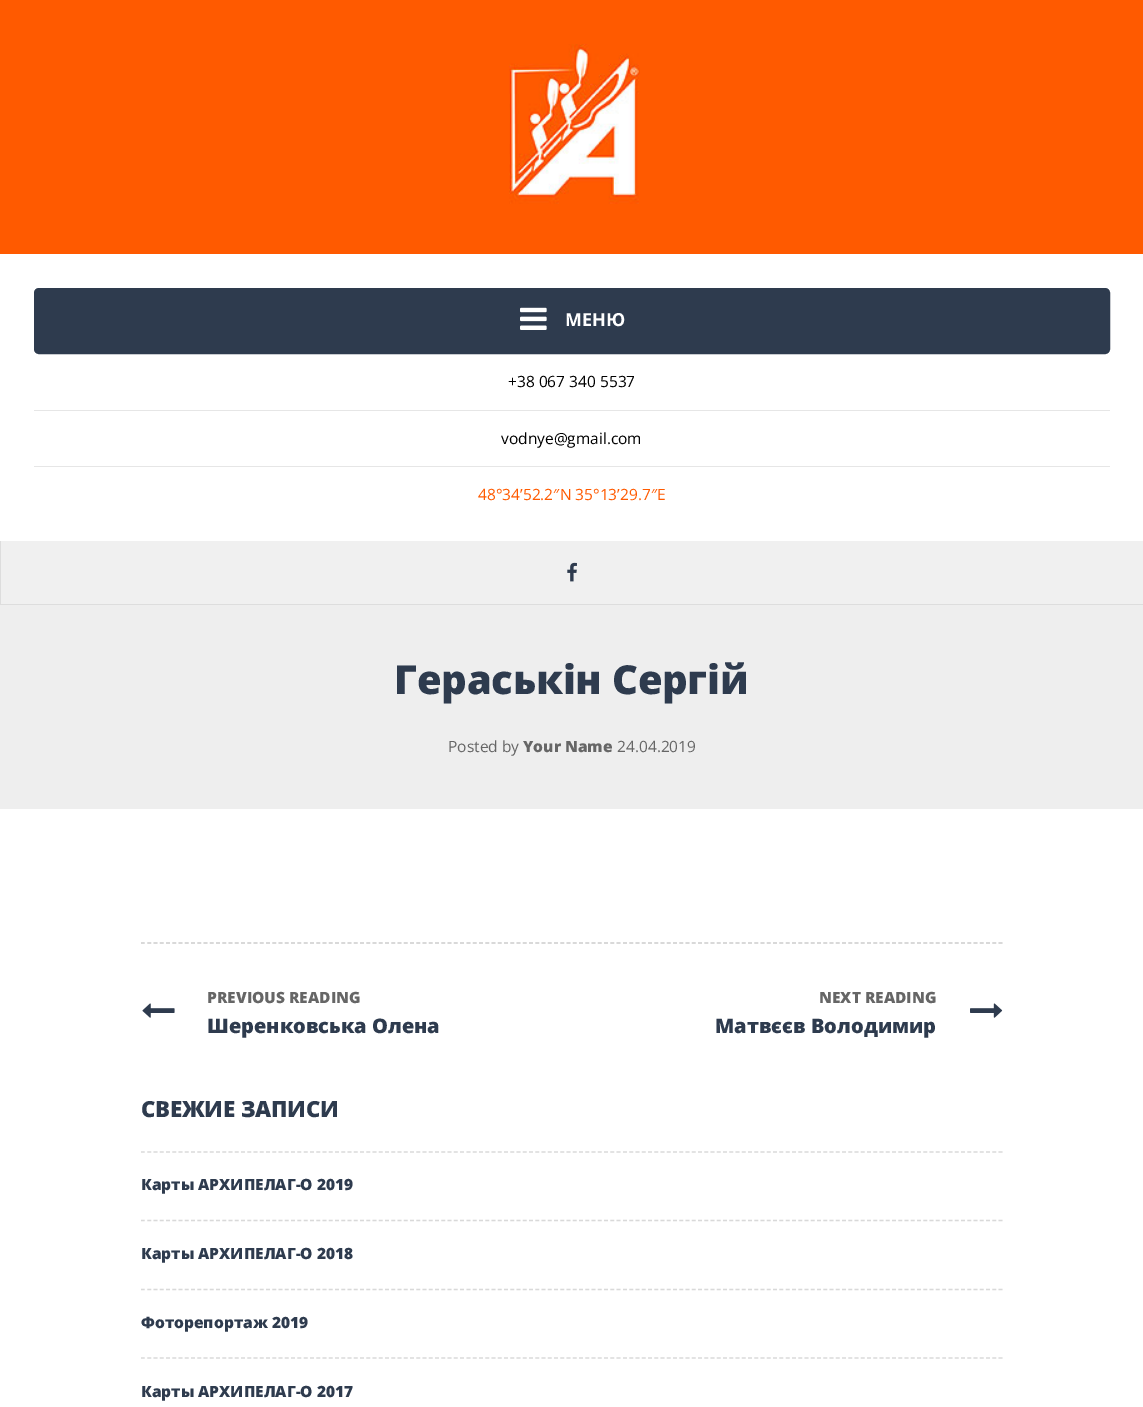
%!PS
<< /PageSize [1143 1407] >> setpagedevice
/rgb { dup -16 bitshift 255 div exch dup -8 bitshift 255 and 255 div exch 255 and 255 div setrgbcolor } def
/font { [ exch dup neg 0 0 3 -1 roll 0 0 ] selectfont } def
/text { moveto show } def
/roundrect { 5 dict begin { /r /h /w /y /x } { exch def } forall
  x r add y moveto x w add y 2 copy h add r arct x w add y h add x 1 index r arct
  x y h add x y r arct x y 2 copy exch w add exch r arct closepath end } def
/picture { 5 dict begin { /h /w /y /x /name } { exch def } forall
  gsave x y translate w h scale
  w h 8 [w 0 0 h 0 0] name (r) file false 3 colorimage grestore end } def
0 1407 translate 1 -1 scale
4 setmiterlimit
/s1 { /OpenSans-Bold 18 font 16#FFFFFF rgb } def
/s2 { /OpenSans-Regular 15.5 font 16#000000 rgb } def
/s3 { /OpenSans-Regular 15.5 font 16#FF5A00 rgb } def
/s4 { /OpenSans-Regular 15.5 font 16#666666 rgb } def
/s5 { /OpenSans-ExtraBold 15.5 font 16#666666 rgb } def
/s6 { /OpenSans-ExtraBold 20 font 16#2E3B4E rgb } def
/s7 { /OpenSans-ExtraBold 15.5 font 16#2E3B4E rgb } def
16#FFFFFF rgb
0 0 1143 1407 rectfill
16#DDDDDD rgb
0 604 1143 1 rectfill
16#FF5A00 rgb
0 0 1143 254 rectfill
(pic1.raw) 509 44 131 160 picture
16#2E3B4E rgb
35.5 289.5 1073 63 3.5 roundrect gsave fill grestore
3 setlinewidth
stroke
(pic2.raw) 520 307 27 23 picture
s1
(МЕНЮ) 565 326 text
s2
(+38 067 340 5537) 508 387 text
16#E6E6E6 rgb
34 410 1076 1 rectfill
s2
(vodnye@gmail.com) 501 444 text
16#E6E6E6 rgb
34 466 1076 1 rectfill
s3
(48°34’52.2″N 35°13’29.7″E) 478 500 text
16#F0F0F0 rgb
1 541 1142 63 rectfill
16#DDDDDD rgb
0 541 1 63 rectfill
(pic3.raw) 567 562 10 20 picture
16#EEEEEE rgb
0 605 1143 204 rectfill
/OpenSans-ExtraBold 40 font
16#2E3B4E rgb
394 694 moveto -0.25 0 (Гераськін Сергій) ashow
s4
(Posted by) 448 752 text
s5
(Your Name) 523 752 text
s4
(24.04.2019) 617 752 text
16#CCCCCC rgb
1.2 setlinewidth
[3.75 2.51] 0 setdash
141 943 moveto 1004 943 lineto stroke
s5
(PREVIOUS READING) 207 1003 text
(pic4.raw) 142 1003 33 15 picture
s6
(Шеренковська Олена) 207 1033 text
s5
(NEXT READING) 819 1003 text
(pic5.raw) 970 1003 33 15 picture
s6
(Матвєєв Володимир) 715 1033 text
/OpenSans-ExtraBold 22.25 font
141 1117 moveto -0.25 0 (СВЕЖИЕ ЗАПИСИ) ashow
16#D9D9D9 rgb
141 1152 moveto 1004 1152 lineto stroke
s7
(Карты АРХИПЕЛАГ-О 2019) 141 1190 text
16#D9D9D9 rgb
141 1220.5 moveto 1004 1220.5 lineto stroke
s7
(Карты АРХИПЕЛАГ-О 2018) 141 1259 text
16#D9D9D9 rgb
141 1289.5 moveto 1004 1289.5 lineto stroke
s7
(Фоторепортаж 2019) 141 1328 text
16#D9D9D9 rgb
141 1358 moveto 1004 1358 lineto stroke
s7
(Карты АРХИПЕЛАГ-О 2017) 141 1397 text
showpage
